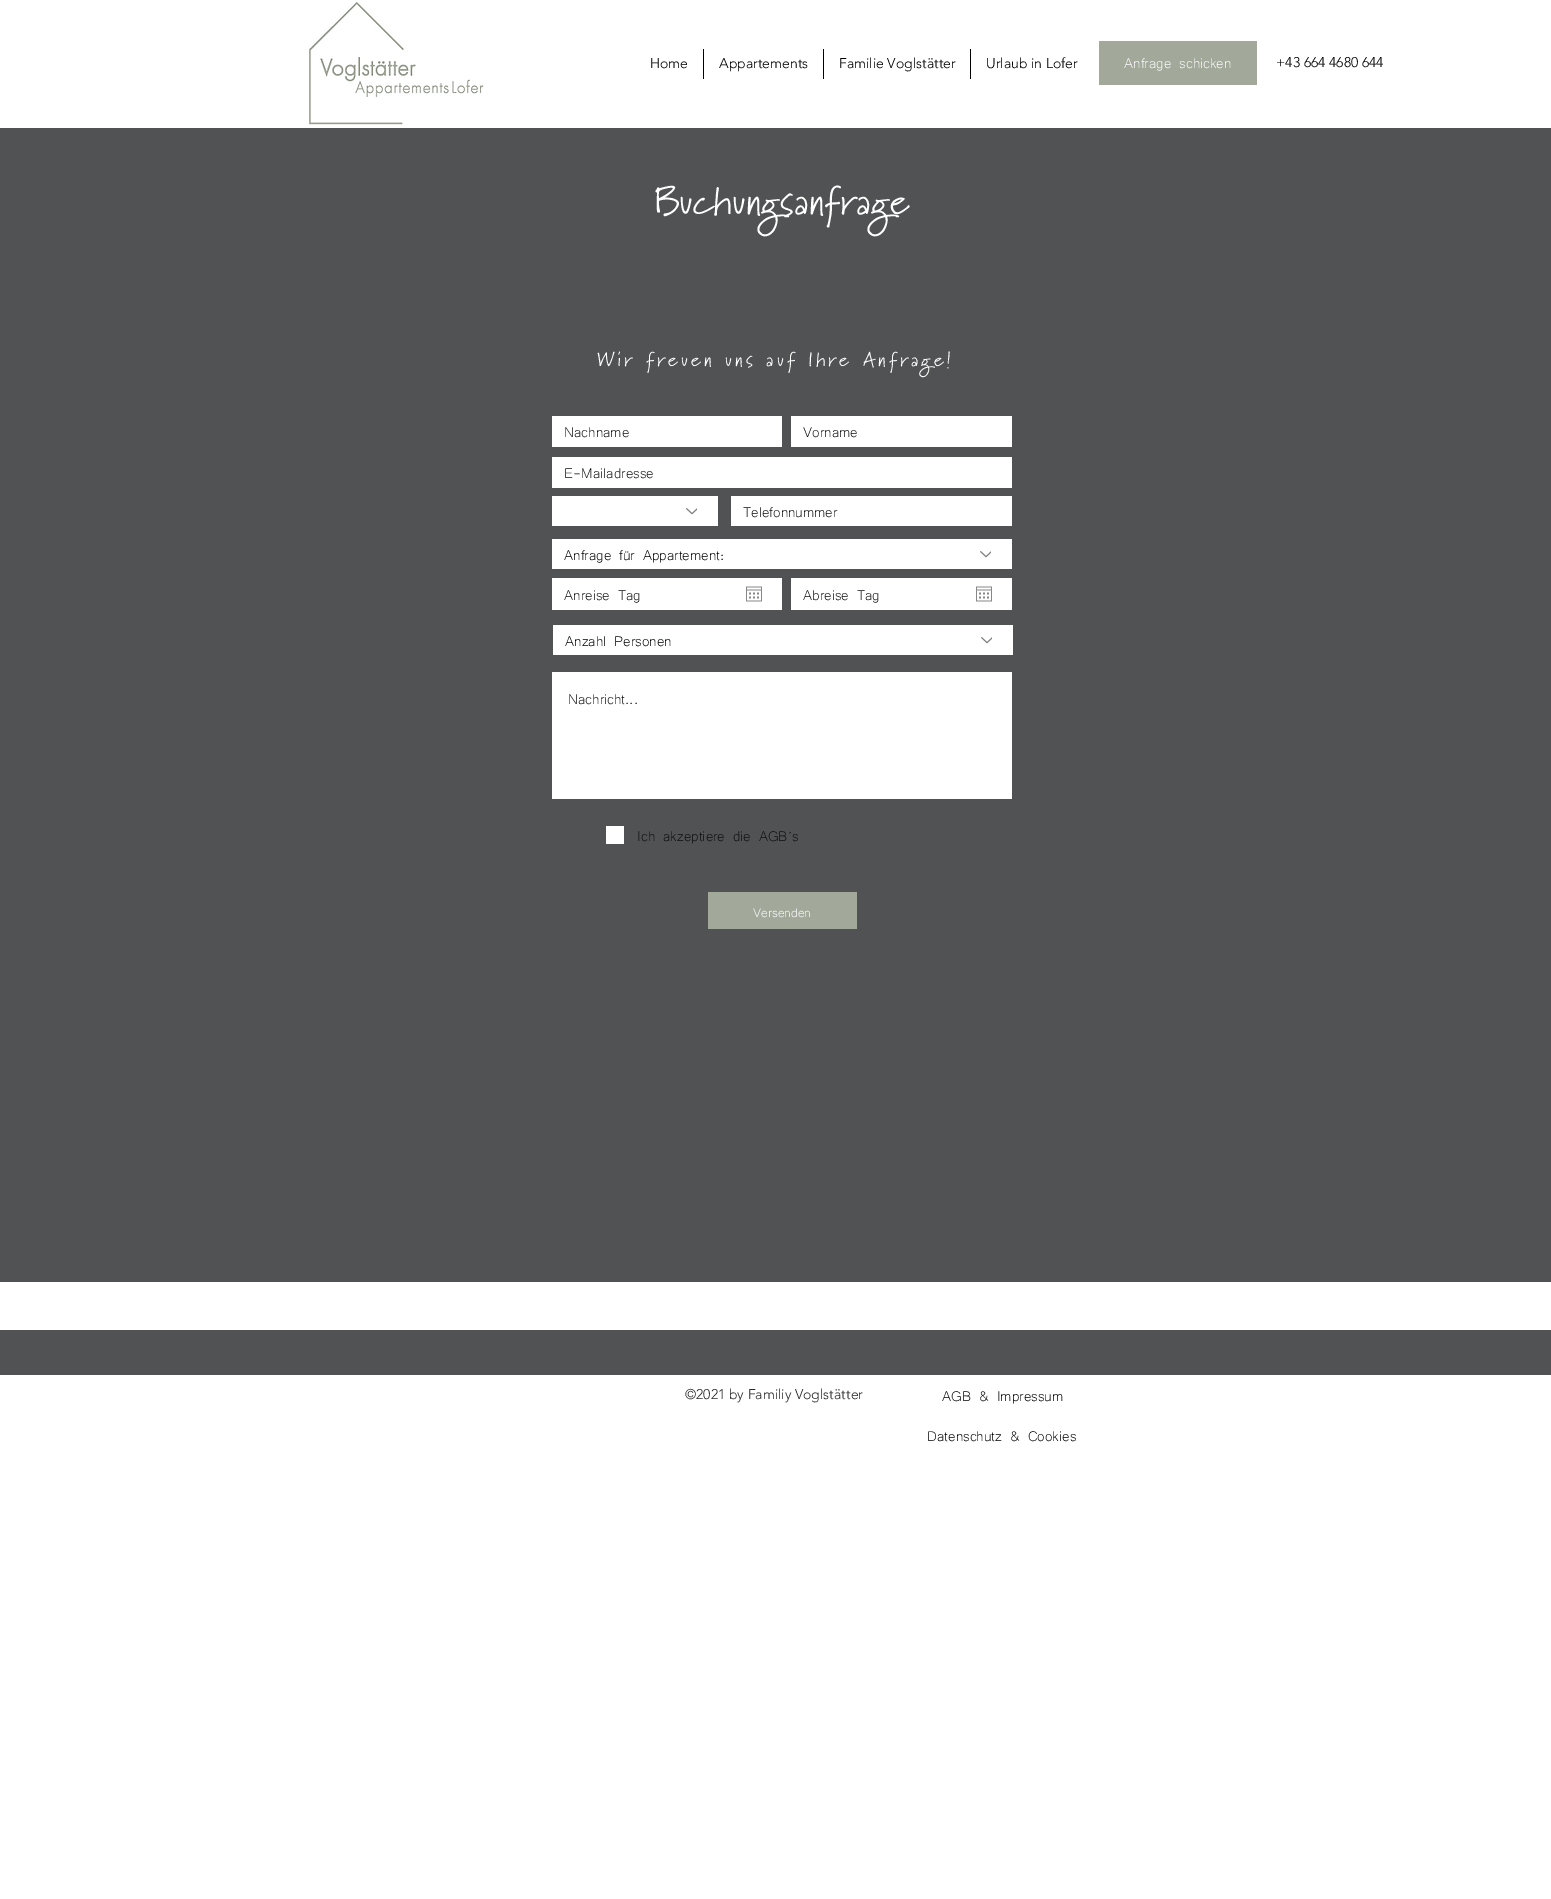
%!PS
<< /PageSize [1551 1899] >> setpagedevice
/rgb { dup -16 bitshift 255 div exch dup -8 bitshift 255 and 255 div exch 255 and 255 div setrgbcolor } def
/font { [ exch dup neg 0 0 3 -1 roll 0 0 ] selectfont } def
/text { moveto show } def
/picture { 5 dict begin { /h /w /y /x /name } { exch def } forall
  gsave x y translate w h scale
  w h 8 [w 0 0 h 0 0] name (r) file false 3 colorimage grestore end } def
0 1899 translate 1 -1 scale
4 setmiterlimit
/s1 { /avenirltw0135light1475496-Light 14 font 16#000000 rgb } def
/s2 { /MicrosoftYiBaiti-Regular 18 font 16#FFFFFF rgb } def
/s3 { /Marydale-Regular 40 font 16#FFFFFF rgb } def
/s4 { /MicrosoftYiBaiti-Regular 18 font 16#0F0F0F rgb } def
/s5 { /MicrosoftYiBaiti-Regular 18 font 16#000000 rgb } def
/s6 { /MicrosoftYiBaiti-Regular 16 font 16#FFFFFF rgb } def
/s7 { /avenirltw0135light1475496-Light 14 font 16#282828 rgb } def
16#FFFFFF rgb
0 0 1551 1899 rectfill
(pic1.raw) 308 2 176 123 picture
s1
(Home) 650 68 text
703 49 1 30 rectfill
(Appartements) 719 68 text
823 49 1 30 rectfill
(Familie Voglstätter) 839 68 text
970 49 1 30 rectfill
(Urlaub in Lofer) 986 68 text
16#A2A89A rgb
1099 41 158 44 rectfill
s2
(Anfrage schicken) 1124 68 text
s1
(+43 664 4680 644) 1276 67 text
16#505254 rgb
0 128 1551 1154 rectfill
s3
(Buchungsanfrage) 654 214 text
/Marydale-Regular 20 font
597 366 moveto 3 0 (Wir freuen uns auf Ihre Anfrage!) ashow
552 416 230 31 rectfill
s4
(Nachname) 564 437 text
16#FFFFFF rgb
791 416 221 31 rectfill
s4
(Vorname) 803 437 text
16#FFFFFF rgb
552 457 460 31 rectfill
s4
(E-Mailadresse) 564 478 text
16#FFFFFF rgb
552 496 166 30 rectfill
(pic2.raw) 686 508 11 7 picture
731 496 281 30 rectfill
s4
(Telefonnummer) 743 517 text
16#FFFFFF rgb
552 539 460 30 rectfill
s5
(Anfrage für Appartement:) 564 560 text
(pic2.raw) 980 551 11 7 picture
16#FFFFFF rgb
552 578 230 32 rectfill
s4
(Anreise Tag) 564 600 text
(pic3.raw) 746 586 16 16 picture
16#FFFFFF rgb
791 578 221 32 rectfill
s4
(Abreise Tag) 803 600 text
(pic3.raw) 976 586 16 16 picture
16#FFFFFF rgb
553 625 460 30 rectfill
s5
(Anzahl Personen) 565 646 text
(pic2.raw) 981 637 11 7 picture
16#FFFFFF rgb
552 672 460 127 rectfill
s4
(Nachricht...) 568 704 text
16#FFFFFF rgb
606 826 18 18 rectfill
s4
(Ich akzeptiere die AGB´s) 637 841 text
16#A2A89A rgb
708 892 149 37 rectfill
s6
(Versenden) 753 917 text
16#505254 rgb
0 1330 1551 45 rectfill
s7
(©2021 by Familiy Voglstätter) 685 1399 text
s5
(AGB & Impressum) 942 1401 text
(Datenschutz & Cookies) 927 1441 text
showpage
